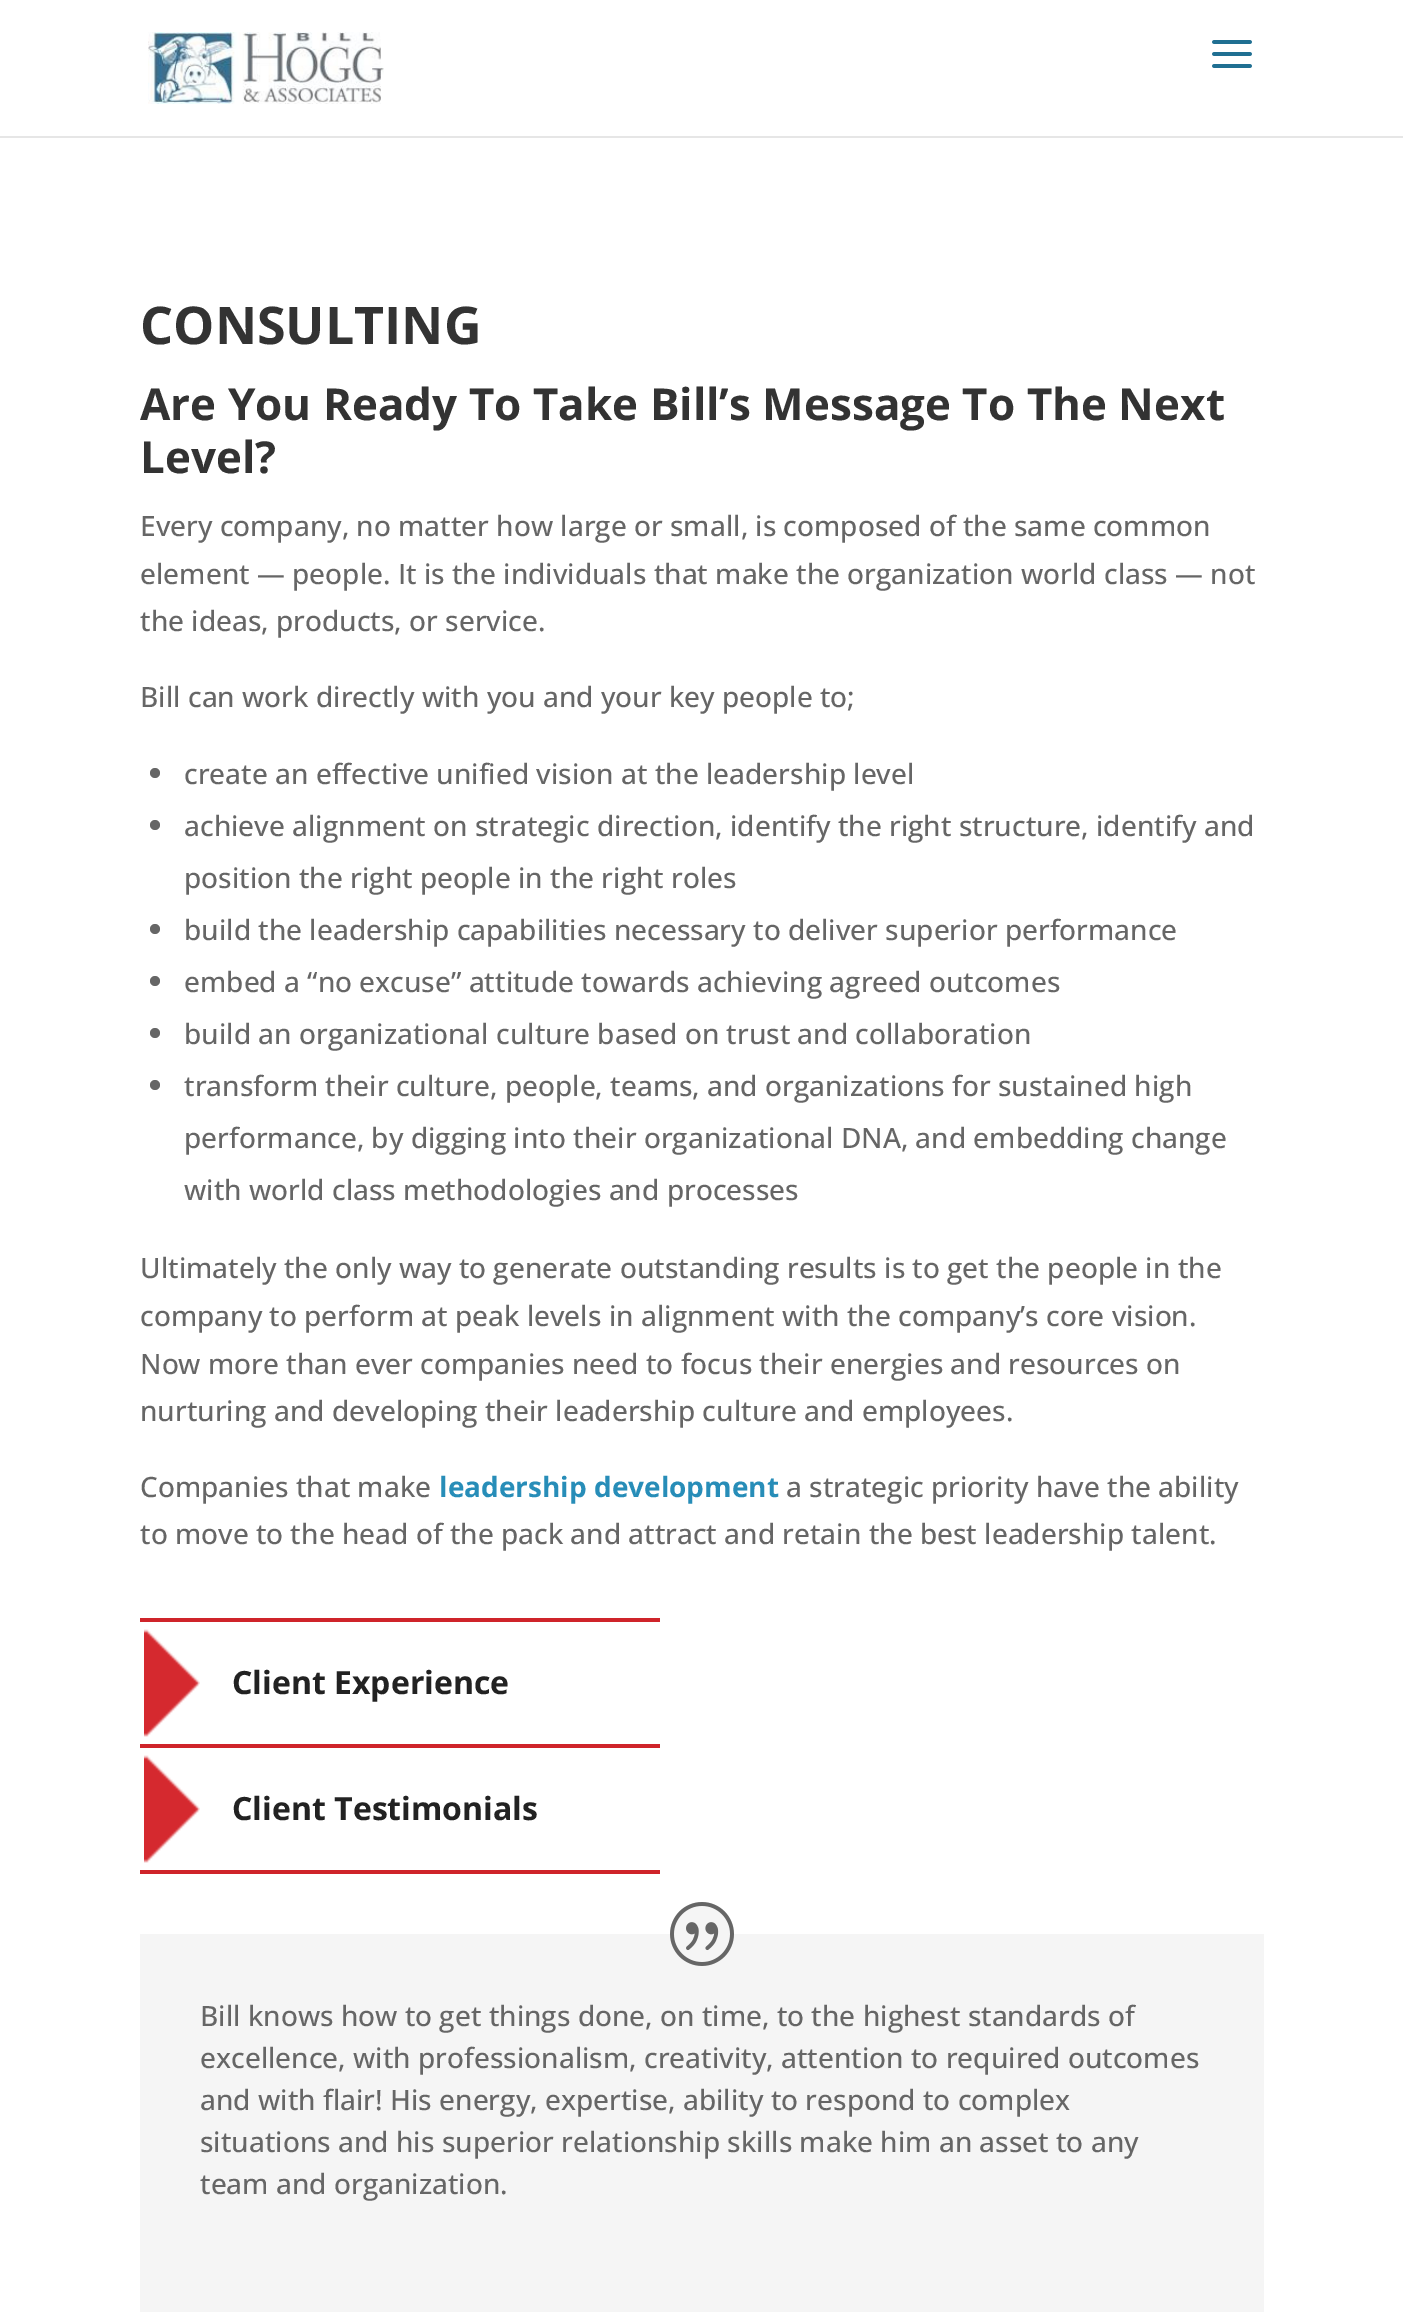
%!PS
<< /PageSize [1403 2312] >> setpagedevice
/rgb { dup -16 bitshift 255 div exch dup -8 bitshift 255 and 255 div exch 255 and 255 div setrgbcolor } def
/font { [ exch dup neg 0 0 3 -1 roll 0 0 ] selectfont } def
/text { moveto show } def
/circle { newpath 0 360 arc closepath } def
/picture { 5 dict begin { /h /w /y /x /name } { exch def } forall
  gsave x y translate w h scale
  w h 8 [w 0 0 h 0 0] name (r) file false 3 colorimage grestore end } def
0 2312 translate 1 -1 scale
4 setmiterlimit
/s1 { /OpenSans-Bold 52 font 16#333333 rgb } def
/s2 { /OpenSans-Bold 44 font 16#333333 rgb } def
/s3 { /OpenSans-Medium 28 font 16#666666 rgb } def
/s4 { /OpenSans-Bold 28 font 16#278DB8 rgb } def
/s5 { /OpenSans-Bold 32 font 16#222222 rgb } def
16#FFFFFF rgb
0 0 1403 2312 rectfill
16#E6E6E6 rgb
0 136 1403 2 rectfill
(pic1.raw) 148 32 236 72 picture
(pic2.raw) 1212 40 40 28 picture
s1
(CONSULTING) 140 344 text
s2
(Are You Ready To Take Bill’s Message To The Next) 140 420 text
(Level?) 140 473 text
s3
(Every company, no matter how large or small, is composed of the same common) 140 536 text
(element — people. It is the individuals that make the organization world class — not) 140 584 text
(the ideas, products, or service.) 140 631 text
(Bill can work directly with you and your key people to;) 140 707 text
155 773 5 circle fill
(create an effective unified vision at the leadership level) 184 784 text
155 825 5 circle fill
(achieve alignment on strategic direction, identify the right structure, identify and) 184 836 text
(position the right people in the right roles) 184 888 text
155 929 5 circle fill
(build the leadership capabilities necessary to deliver superior performance) 184 940 text
155 981 5 circle fill
(embed a “no excuse” attitude towards achieving agreed outcomes) 184 992 text
155 1033 5 circle fill
(build an organizational culture based on trust and collaboration) 184 1044 text
155 1085 5 circle fill
(transform their culture, people, teams, and organizations for sustained high) 184 1096 text
(performance, by digging into their organizational DNA, and embedding change) 184 1148 text
(with world class methodologies and processes) 184 1200 text
(Ultimately the only way to generate outstanding results is to get the people in the) 140 1278 text
(company to perform at peak levels in alignment with the company’s core vision.) 140 1326 text
(Now more than ever companies need to focus their energies and resources on) 140 1374 text
(nurturing and developing their leadership culture and employees.) 140 1421 text
(Companies that make) 140 1497 text
s4
(leadership development) 439 1497 text
s3
(a strategic priority have the ability) 786 1497 text
(to move to the head of the pack and attract and retain the best leadership talent.) 140 1544 text
(pic3.raw) 144 1629 56 108 picture
16#CF242A rgb
140 1618 520 4 rectfill
s5
(Client Experience) 232 1694 text
(pic3.raw) 144 1755 56 108 picture
16#CF242A rgb
140 1744 520 4 rectfill
140 1870 520 4 rectfill
s5
(Client Testimonials) 232 1820 text
16#F5F5F5 rgb
140 1934 1124 378 rectfill
702 1934 32 circle fill
(pic4.raw) 670 1902 64 64 picture
s3
(Bill knows how to get things done, on time, to the highest standards of) 200 2026 text
(excellence, with professionalism, creativity, attention to required outcomes) 200 2068 text
(and with flair! His energy, expertise, ability to respond to complex) 200 2110 text
(situations and his superior relationship skills make him an asset to any) 200 2152 text
(team and organization.) 200 2194 text
showpage
